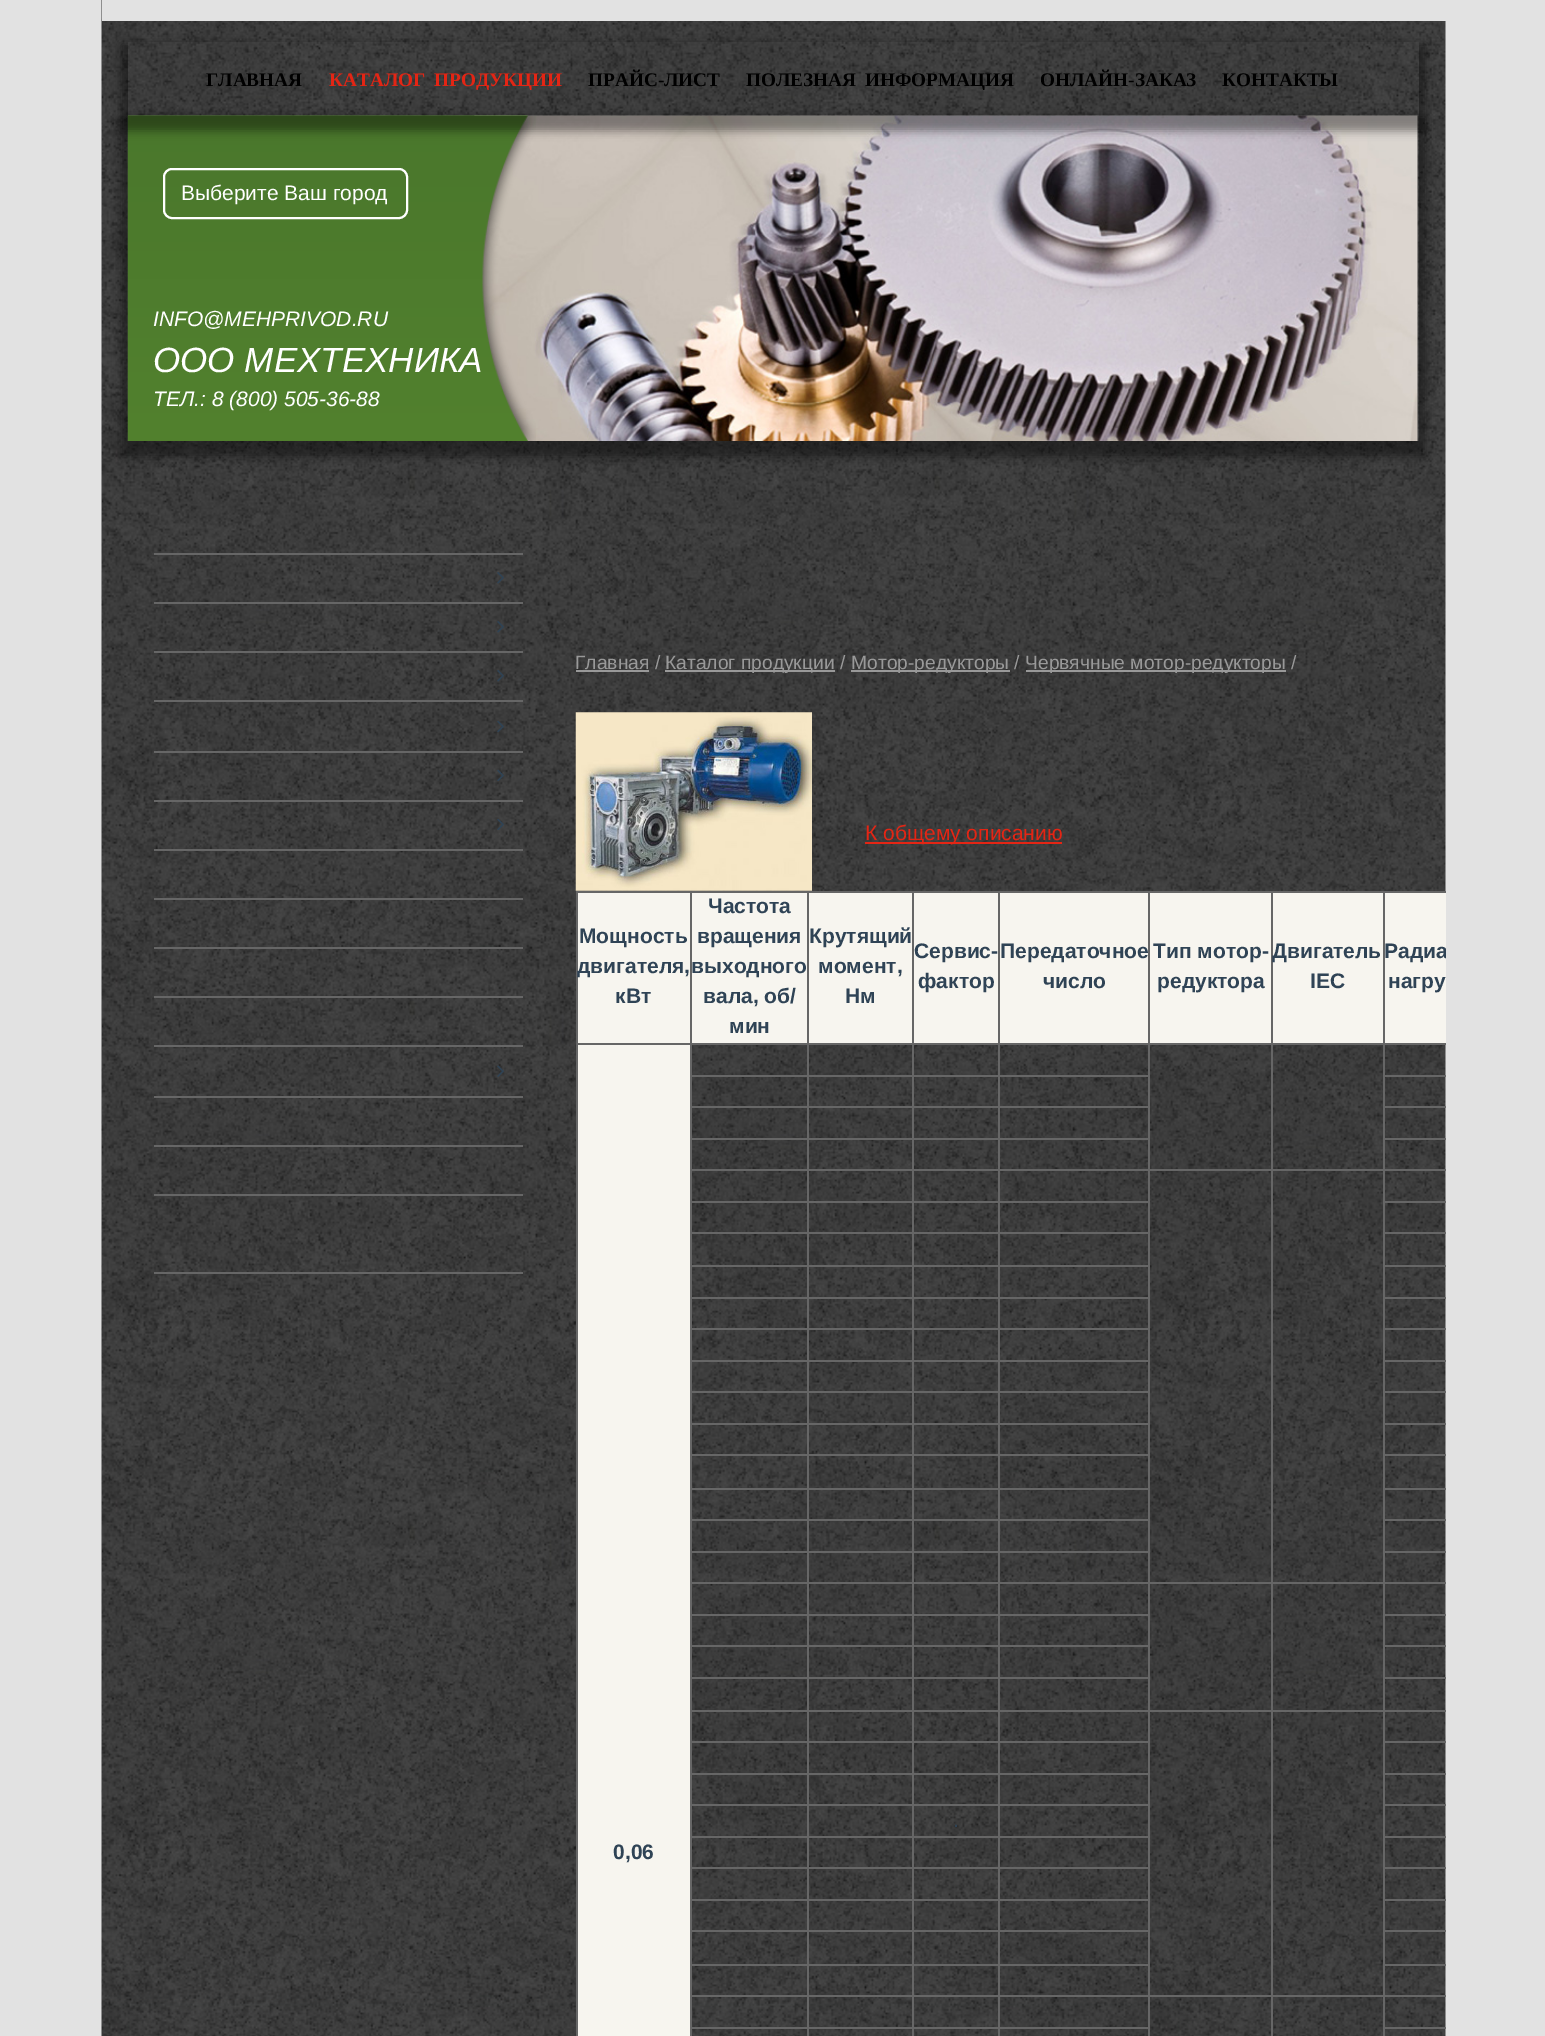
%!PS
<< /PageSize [1545 2036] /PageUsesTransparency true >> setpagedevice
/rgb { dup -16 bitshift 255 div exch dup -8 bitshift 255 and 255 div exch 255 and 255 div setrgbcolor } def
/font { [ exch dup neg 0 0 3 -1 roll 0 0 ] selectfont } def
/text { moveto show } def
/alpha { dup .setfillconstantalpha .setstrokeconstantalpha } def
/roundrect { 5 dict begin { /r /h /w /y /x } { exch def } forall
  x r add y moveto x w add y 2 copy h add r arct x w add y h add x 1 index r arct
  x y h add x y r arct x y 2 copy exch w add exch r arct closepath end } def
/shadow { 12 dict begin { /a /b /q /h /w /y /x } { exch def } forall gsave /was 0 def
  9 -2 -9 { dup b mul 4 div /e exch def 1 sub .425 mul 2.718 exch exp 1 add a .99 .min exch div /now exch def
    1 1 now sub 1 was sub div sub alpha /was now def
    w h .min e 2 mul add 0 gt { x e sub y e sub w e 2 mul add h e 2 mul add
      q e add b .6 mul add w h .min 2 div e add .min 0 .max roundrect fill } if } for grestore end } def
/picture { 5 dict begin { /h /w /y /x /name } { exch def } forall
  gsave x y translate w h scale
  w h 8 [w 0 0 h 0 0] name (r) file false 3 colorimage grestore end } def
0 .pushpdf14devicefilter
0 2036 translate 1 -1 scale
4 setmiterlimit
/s1 { /LiberationSerif-Bold 19.25 font 16#000000 rgb } def
/s2 { /LiberationSans-Regular 21 font 16#FFFFFF rgb } def
/s3 { /LiberationSans-Italic 21 font 16#FFFFFF rgb } def
/s4 { /LiberationSans-Italic 35 font 16#FFFFFF rgb } def
/s5 { /LiberationSans-Regular 19.25 font 16#999999 rgb } def
/s6 { /LiberationSans-Regular 21 font 16#E42514 rgb } def
/s7 { /LiberationSans-Bold 21 font 16#2F4355 rgb } def
/s8 { /LiberationSans-Regular 21 font 16#2F4355 rgb } def
16#E2E2E2 rgb
0 0 1545 2036 rectfill
(pic1.raw) 101 0 1345 2036 picture
102 0 1344 21 rectfill
gsave
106 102 moveto 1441 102 lineto 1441 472 lineto 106 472 lineto closepath 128 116 moveto 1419 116 lineto 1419 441 lineto 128 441 lineto closepath eoclip newpath
16#000000 rgb
121 117 1305 340 0 4.5 0.4 shadow
grestore
(pic3.raw) 474 115 944 326 picture
(pic2.raw) 127 115 409 326 picture
gsave
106 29 moveto 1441 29 lineto 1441 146 lineto 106 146 lineto closepath 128 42 moveto 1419 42 lineto 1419 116 lineto 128 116 lineto closepath eoclip newpath
16#000000 rgb
121 44 1305 87 0 4.5 0.4 shadow
grestore
s1
(ГЛАВНАЯ) 206 86 text
16#E42514 rgb
329 86 moveto 4 0 32 (КАТАЛОГ ПРОДУКЦИИ) widthshow
s1
(ПРАЙС-ЛИСТ) 588 86 text
746 86 moveto 4 0 32 (ПОЛЕЗНАЯ ИНФОРМАЦИЯ) widthshow
(ОНЛАЙН-ЗАКАЗ) 1040 86 text
(КОНТАКТЫ) 1222 86 text
16#FFFFFF rgb
2 setlinewidth
164 169 243 49 8 roundrect stroke
s2
(Выберите Ваш город) 181 200 text
s3
(INFO@MEHPRIVOD.RU) 153 326 text
s4
(ООО МЕХТЕХНИКА) 153 372 text
s3
(ТЕЛ.: 8 \(800\) 505-36-88) 153 406 text
16#666666 rgb
154 553 369 2 rectfill
154 1272 369 2 rectfill
154 602 369 2 rectfill
(pic4.raw) 497 572 7 12 picture
154 651 369 2 rectfill
(pic5.raw) 497 621 7 12 picture
154 700 369 2 rectfill
(pic6.raw) 497 670 7 12 picture
154 751 369 2 rectfill
(pic7.raw) 497 721 7 12 picture
154 800 369 2 rectfill
(pic8.raw) 497 769 7 12 picture
154 849 369 2 rectfill
(pic9.raw) 497 819 7 11 picture
154 898 369 2 rectfill
154 947 369 2 rectfill
154 996 369 2 rectfill
154 1045 369 2 rectfill
154 1096 369 2 rectfill
(pic10.raw) 497 1065 7 12 picture
154 1145 369 2 rectfill
154 1194 369 2 rectfill
s5
(Главная /) 575 669 text
576 670 73 2 rectfill
665 670 170 2 rectfill
(Каталог продукции /) 665 669 text
851 670 159 2 rectfill
(Мотор-редукторы /) 851 669 text
1026 670 260 2 rectfill
(Червячные мотор-редукторы /) 1025 669 text
(pic11.raw) 575 712 237 179 picture
16#E42514 rgb
865 842 197 2 rectfill
s6
(К общему описанию) 865 840 text
16#F7F5EF rgb
578 893 112 150 rectfill
16#666666 rgb
1383 891 63 2 rectfill
1383 1043 63 2 rectfill
1383 1075 63 2 rectfill
1383 1106 63 2 rectfill
1383 1138 63 2 rectfill
1383 1169 63 2 rectfill
1383 1201 63 2 rectfill
1383 1232 63 2 rectfill
1383 1265 63 2 rectfill
1383 1297 63 2 rectfill
1383 1328 63 2 rectfill
1383 1360 63 2 rectfill
1383 1391 63 2 rectfill
1383 1423 63 2 rectfill
1383 1454 63 2 rectfill
1383 1488 63 2 rectfill
1383 1519 63 2 rectfill
1383 1551 63 2 rectfill
1383 1582 63 2 rectfill
1383 1614 63 2 rectfill
1383 1645 63 2 rectfill
1383 1677 63 2 rectfill
1383 1710 63 2 rectfill
1383 1741 63 2 rectfill
1383 1773 63 2 rectfill
1383 1804 63 2 rectfill
1383 1836 63 2 rectfill
1383 1867 63 2 rectfill
1383 1899 63 2 rectfill
1383 1930 63 2 rectfill
1383 1964 63 2 rectfill
1383 1995 63 2 rectfill
1383 2027 63 2 rectfill
1383 2027 2 9 rectfill
1383 1995 2 33 rectfill
1271 1995 113 2 rectfill
1383 1964 2 33 rectfill
1383 1930 2 35 rectfill
1383 1899 2 33 rectfill
1383 1867 2 34 rectfill
1383 1836 2 33 rectfill
1383 1804 2 34 rectfill
1383 1773 2 33 rectfill
1383 1741 2 34 rectfill
1383 1710 2 33 rectfill
1271 1710 113 2 rectfill
1383 1677 2 35 rectfill
1383 1645 2 33 rectfill
1383 1614 2 33 rectfill
1383 1582 2 33 rectfill
1271 1582 113 2 rectfill
1383 1551 2 33 rectfill
1383 1519 2 33 rectfill
1383 1488 2 33 rectfill
1383 1454 2 35 rectfill
1383 1423 2 33 rectfill
1383 1391 2 34 rectfill
1383 1360 2 33 rectfill
1383 1328 2 34 rectfill
1383 1297 2 33 rectfill
1383 1265 2 34 rectfill
1383 1232 2 35 rectfill
1383 1201 2 33 rectfill
1383 1169 2 33 rectfill
1271 1169 113 2 rectfill
1383 1138 2 33 rectfill
1383 1106 2 33 rectfill
1383 1075 2 33 rectfill
1383 1043 2 33 rectfill
1271 1043 113 2 rectfill
1383 891 2 154 rectfill
1271 891 113 2 rectfill
1271 1995 2 41 rectfill
1148 1995 124 2 rectfill
1271 1710 2 287 rectfill
1148 1710 124 2 rectfill
1271 1582 2 130 rectfill
1148 1582 124 2 rectfill
1271 1169 2 415 rectfill
1148 1169 124 2 rectfill
1271 1043 2 128 rectfill
1148 1043 124 2 rectfill
1271 891 2 154 rectfill
1148 891 124 2 rectfill
998 1075 152 2 rectfill
998 1106 152 2 rectfill
998 1138 152 2 rectfill
998 1201 152 2 rectfill
998 1232 152 2 rectfill
998 1265 152 2 rectfill
998 1297 152 2 rectfill
998 1328 152 2 rectfill
998 1360 152 2 rectfill
998 1391 152 2 rectfill
998 1423 152 2 rectfill
998 1454 152 2 rectfill
998 1488 152 2 rectfill
998 1519 152 2 rectfill
998 1551 152 2 rectfill
998 1614 152 2 rectfill
998 1645 152 2 rectfill
998 1677 152 2 rectfill
998 1741 152 2 rectfill
998 1773 152 2 rectfill
998 1804 152 2 rectfill
998 1836 152 2 rectfill
998 1867 152 2 rectfill
998 1899 152 2 rectfill
998 1930 152 2 rectfill
998 1964 152 2 rectfill
998 2027 152 2 rectfill
1148 1995 2 41 rectfill
998 1995 152 2 rectfill
1148 1710 2 287 rectfill
998 1710 152 2 rectfill
1148 1582 2 130 rectfill
998 1582 152 2 rectfill
1148 1169 2 415 rectfill
998 1169 152 2 rectfill
1148 1043 2 128 rectfill
998 1043 152 2 rectfill
1148 891 2 154 rectfill
998 891 152 2 rectfill
998 2027 2 9 rectfill
912 2027 87 2 rectfill
998 1995 2 33 rectfill
912 1995 87 2 rectfill
998 1964 2 33 rectfill
912 1964 87 2 rectfill
998 1930 2 35 rectfill
912 1930 87 2 rectfill
998 1899 2 33 rectfill
912 1899 87 2 rectfill
998 1867 2 34 rectfill
912 1867 87 2 rectfill
998 1836 2 33 rectfill
912 1836 87 2 rectfill
998 1804 2 34 rectfill
912 1804 87 2 rectfill
998 1773 2 33 rectfill
912 1773 87 2 rectfill
998 1741 2 34 rectfill
912 1741 87 2 rectfill
998 1710 2 33 rectfill
912 1710 87 2 rectfill
998 1677 2 35 rectfill
912 1677 87 2 rectfill
998 1645 2 33 rectfill
912 1645 87 2 rectfill
998 1614 2 33 rectfill
912 1614 87 2 rectfill
998 1582 2 33 rectfill
912 1582 87 2 rectfill
998 1551 2 33 rectfill
912 1551 87 2 rectfill
998 1519 2 33 rectfill
912 1519 87 2 rectfill
998 1488 2 33 rectfill
912 1488 87 2 rectfill
998 1454 2 35 rectfill
912 1454 87 2 rectfill
998 1423 2 33 rectfill
912 1423 87 2 rectfill
998 1391 2 34 rectfill
912 1391 87 2 rectfill
998 1360 2 33 rectfill
912 1360 87 2 rectfill
998 1328 2 34 rectfill
912 1328 87 2 rectfill
998 1297 2 33 rectfill
912 1297 87 2 rectfill
998 1265 2 34 rectfill
912 1265 87 2 rectfill
998 1232 2 35 rectfill
912 1232 87 2 rectfill
998 1201 2 33 rectfill
912 1201 87 2 rectfill
998 1169 2 33 rectfill
912 1169 87 2 rectfill
998 1138 2 33 rectfill
912 1138 87 2 rectfill
998 1106 2 33 rectfill
912 1106 87 2 rectfill
998 1075 2 33 rectfill
912 1075 87 2 rectfill
998 1043 2 33 rectfill
912 1043 87 2 rectfill
998 891 2 154 rectfill
912 891 87 2 rectfill
912 2027 2 9 rectfill
807 2027 107 2 rectfill
912 1995 2 33 rectfill
807 1995 107 2 rectfill
912 1964 2 33 rectfill
807 1964 107 2 rectfill
912 1930 2 35 rectfill
807 1930 107 2 rectfill
912 1899 2 33 rectfill
807 1899 107 2 rectfill
912 1867 2 34 rectfill
807 1867 107 2 rectfill
912 1836 2 33 rectfill
807 1836 107 2 rectfill
912 1804 2 34 rectfill
807 1804 107 2 rectfill
912 1773 2 33 rectfill
807 1773 107 2 rectfill
912 1741 2 34 rectfill
807 1741 107 2 rectfill
912 1710 2 33 rectfill
807 1710 107 2 rectfill
912 1677 2 35 rectfill
807 1677 107 2 rectfill
912 1645 2 33 rectfill
807 1645 107 2 rectfill
912 1614 2 33 rectfill
807 1614 107 2 rectfill
912 1582 2 33 rectfill
807 1582 107 2 rectfill
912 1551 2 33 rectfill
807 1551 107 2 rectfill
912 1519 2 33 rectfill
807 1519 107 2 rectfill
912 1488 2 33 rectfill
807 1488 107 2 rectfill
912 1454 2 35 rectfill
807 1454 107 2 rectfill
912 1423 2 33 rectfill
807 1423 107 2 rectfill
912 1391 2 34 rectfill
807 1391 107 2 rectfill
912 1360 2 33 rectfill
807 1360 107 2 rectfill
912 1328 2 34 rectfill
807 1328 107 2 rectfill
912 1297 2 33 rectfill
807 1297 107 2 rectfill
912 1265 2 34 rectfill
807 1265 107 2 rectfill
912 1232 2 35 rectfill
807 1232 107 2 rectfill
912 1201 2 33 rectfill
807 1201 107 2 rectfill
912 1169 2 33 rectfill
807 1169 107 2 rectfill
912 1138 2 33 rectfill
807 1138 107 2 rectfill
912 1106 2 33 rectfill
807 1106 107 2 rectfill
912 1075 2 33 rectfill
807 1075 107 2 rectfill
912 1043 2 33 rectfill
807 1043 107 2 rectfill
912 891 2 154 rectfill
807 891 107 2 rectfill
807 2027 2 9 rectfill
690 2027 119 2 rectfill
807 1995 2 33 rectfill
690 1995 119 2 rectfill
807 1964 2 33 rectfill
690 1964 119 2 rectfill
807 1930 2 35 rectfill
690 1930 119 2 rectfill
807 1899 2 33 rectfill
690 1899 119 2 rectfill
807 1867 2 34 rectfill
690 1867 119 2 rectfill
807 1836 2 33 rectfill
690 1836 119 2 rectfill
807 1804 2 34 rectfill
690 1804 119 2 rectfill
807 1773 2 33 rectfill
690 1773 119 2 rectfill
807 1741 2 34 rectfill
690 1741 119 2 rectfill
807 1710 2 33 rectfill
690 1710 119 2 rectfill
807 1677 2 35 rectfill
690 1677 119 2 rectfill
807 1645 2 33 rectfill
690 1645 119 2 rectfill
807 1614 2 33 rectfill
690 1614 119 2 rectfill
807 1582 2 33 rectfill
690 1582 119 2 rectfill
807 1551 2 33 rectfill
690 1551 119 2 rectfill
807 1519 2 33 rectfill
690 1519 119 2 rectfill
807 1488 2 33 rectfill
690 1488 119 2 rectfill
807 1454 2 35 rectfill
690 1454 119 2 rectfill
807 1423 2 33 rectfill
690 1423 119 2 rectfill
807 1391 2 34 rectfill
690 1391 119 2 rectfill
807 1360 2 33 rectfill
690 1360 119 2 rectfill
807 1328 2 34 rectfill
690 1328 119 2 rectfill
807 1297 2 33 rectfill
690 1297 119 2 rectfill
807 1265 2 34 rectfill
690 1265 119 2 rectfill
807 1232 2 35 rectfill
690 1232 119 2 rectfill
807 1201 2 33 rectfill
690 1201 119 2 rectfill
807 1169 2 33 rectfill
690 1169 119 2 rectfill
807 1138 2 33 rectfill
690 1138 119 2 rectfill
807 1106 2 33 rectfill
690 1106 119 2 rectfill
807 1075 2 33 rectfill
690 1075 119 2 rectfill
807 1043 2 33 rectfill
690 1043 119 2 rectfill
807 891 2 154 rectfill
690 891 119 2 rectfill
690 2027 2 9 rectfill
690 1995 2 33 rectfill
690 1964 2 33 rectfill
690 1930 2 35 rectfill
690 1899 2 33 rectfill
690 1867 2 34 rectfill
690 1836 2 33 rectfill
690 1804 2 34 rectfill
690 1773 2 33 rectfill
690 1741 2 34 rectfill
690 1710 2 33 rectfill
690 1677 2 35 rectfill
690 1645 2 33 rectfill
690 1614 2 33 rectfill
690 1582 2 33 rectfill
690 1551 2 33 rectfill
690 1519 2 33 rectfill
690 1488 2 33 rectfill
690 1454 2 35 rectfill
690 1423 2 33 rectfill
690 1391 2 34 rectfill
690 1360 2 33 rectfill
690 1328 2 34 rectfill
690 1297 2 33 rectfill
690 1265 2 34 rectfill
690 1232 2 35 rectfill
690 1201 2 33 rectfill
690 1169 2 33 rectfill
690 1138 2 33 rectfill
690 1106 2 33 rectfill
690 1075 2 33 rectfill
690 1043 2 33 rectfill
576 1043 115 2 rectfill
690 891 2 154 rectfill
576 891 115 2 rectfill
576 1043 2 993 rectfill
576 891 2 154 rectfill
s7
(Мощность) 579 943 text
(двигателя,) 577 973 text
(кВт) 615 1003 text
16#F7F5EF rgb
692 893 115 150 rectfill
s7
(Частота) 708 913 text
(вращения) 697 943 text
(выходного) 691 973 text
(вала, об/) 703 1003 text
(мин) 729 1033 text
16#F7F5EF rgb
809 893 103 150 rectfill
s7
(Крутящий) 809 943 text
(момент,) 818 973 text
(Нм) 845 1003 text
16#F7F5EF rgb
914 893 84 150 rectfill
s7
(Сервис-) 914 958 text
(фактор) 918 988 text
16#F7F5EF rgb
1000 893 148 150 rectfill
s7
(Передаточное) 1000 958 text
(число) 1043 988 text
16#F7F5EF rgb
1150 893 121 150 rectfill
s7
(Тип мотор-) 1153 958 text
(редуктора) 1157 988 text
16#F7F5EF rgb
1273 893 110 150 rectfill
s7
(Двигатель) 1272 958 text
(IEC) 1310 988 text
16#F7F5EF rgb
1385 893 61 150 rectfill
gsave
102 0 1344 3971 rectclip
s7
(Радиа) 1384 958 text
grestore
s7
(нагру) 1388 988 text
s8
(.) 953 1827 text
16#F7F5EF rgb
578 1045 112 991 rectfill
s7
(0,06) 613 1859 text
.poppdf14devicefilter showpage
